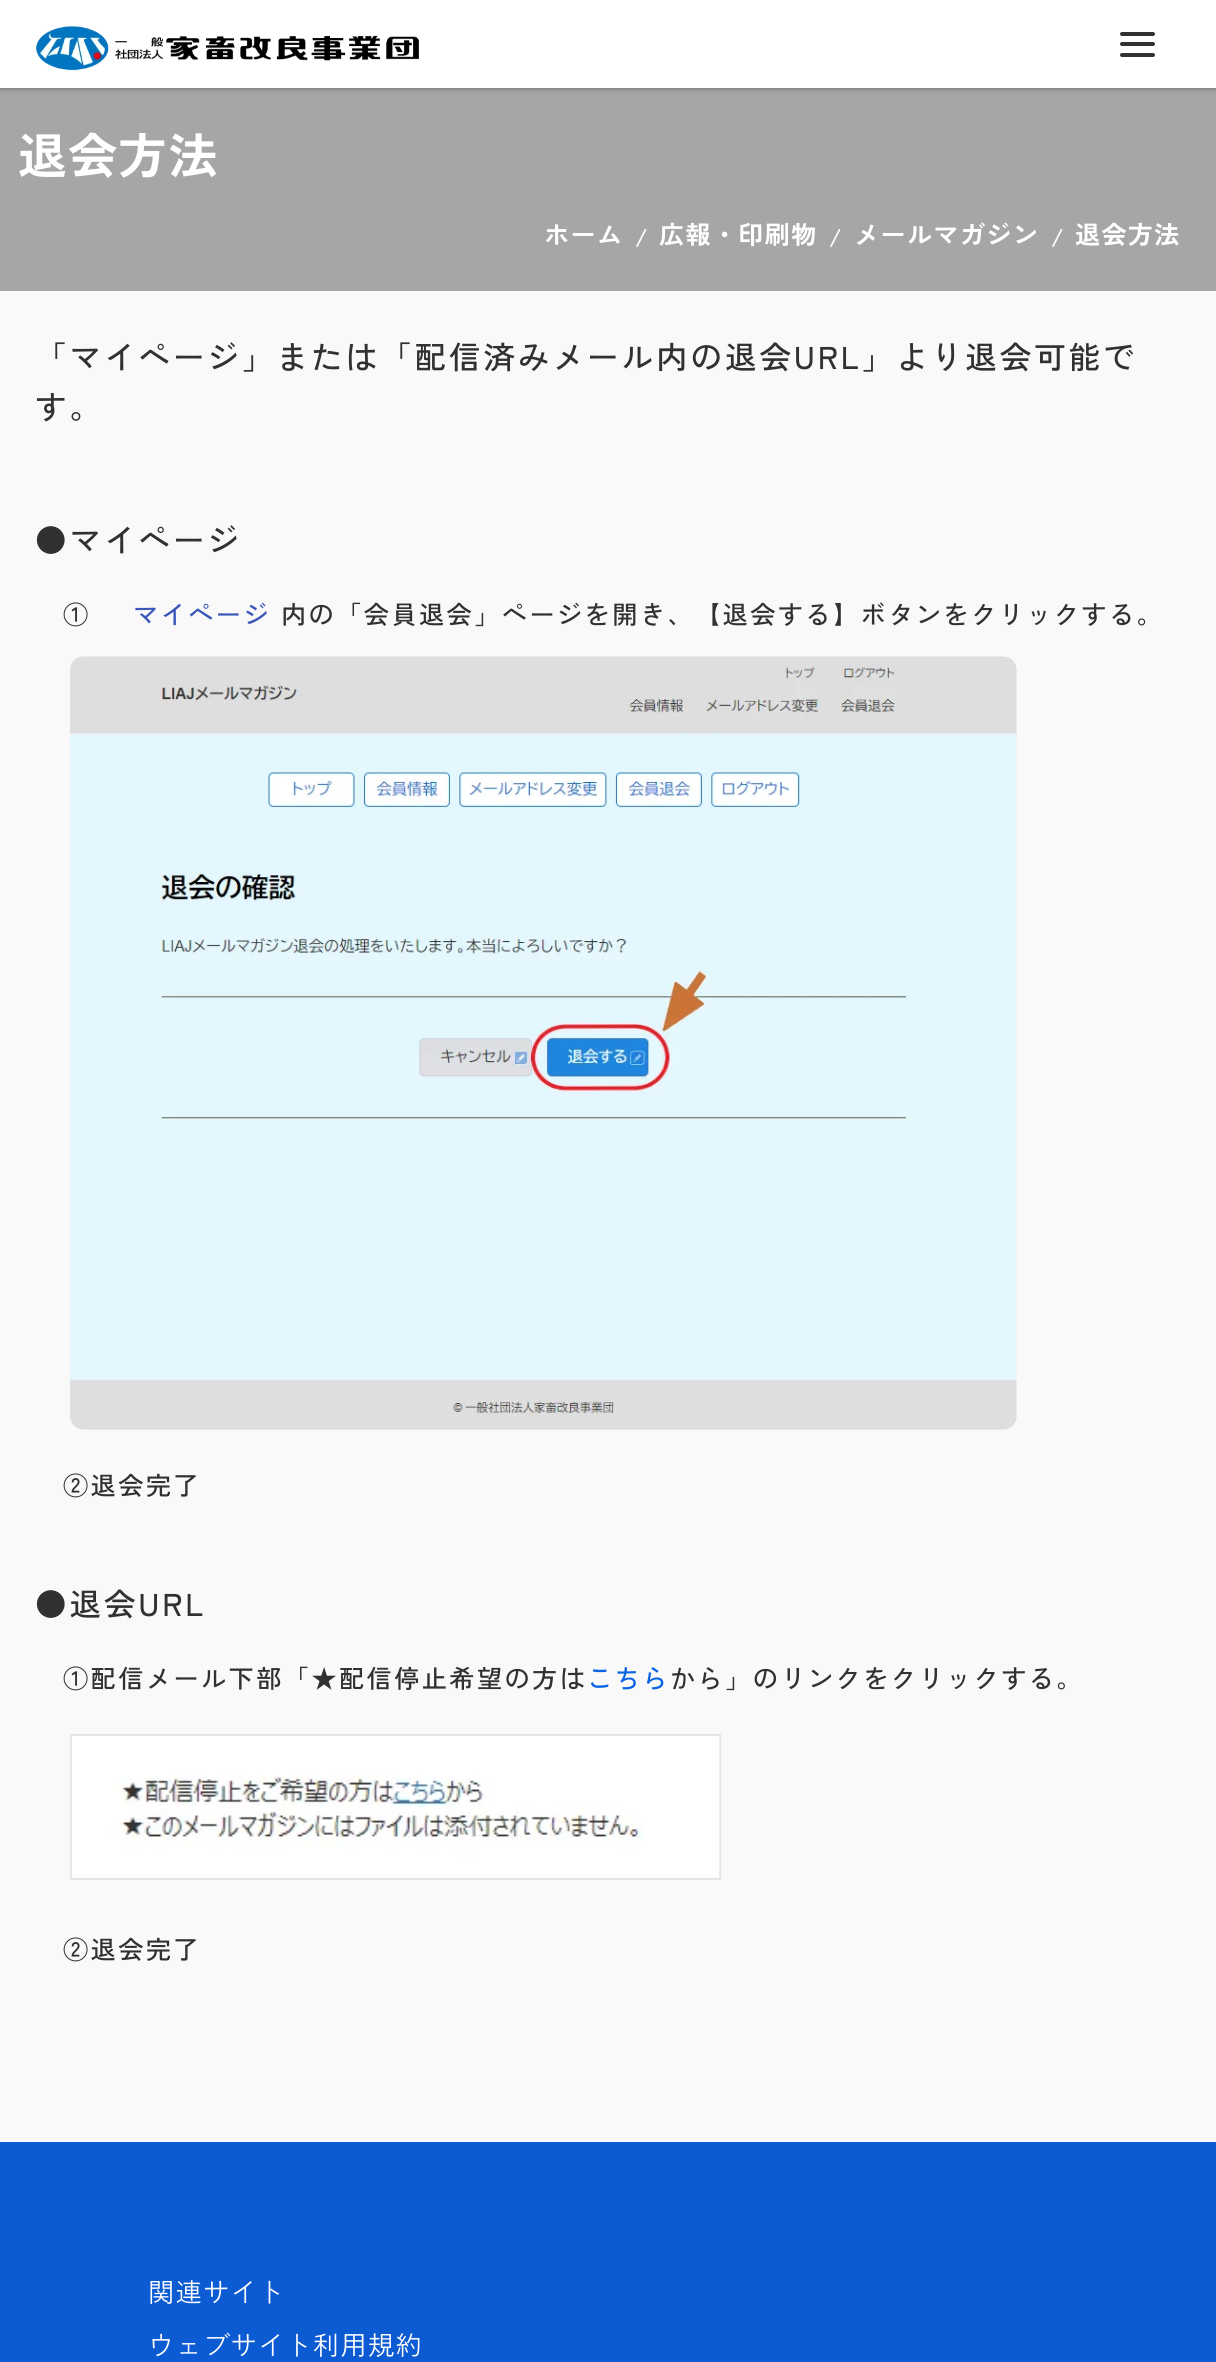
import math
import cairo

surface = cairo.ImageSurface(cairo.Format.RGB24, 1216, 2362)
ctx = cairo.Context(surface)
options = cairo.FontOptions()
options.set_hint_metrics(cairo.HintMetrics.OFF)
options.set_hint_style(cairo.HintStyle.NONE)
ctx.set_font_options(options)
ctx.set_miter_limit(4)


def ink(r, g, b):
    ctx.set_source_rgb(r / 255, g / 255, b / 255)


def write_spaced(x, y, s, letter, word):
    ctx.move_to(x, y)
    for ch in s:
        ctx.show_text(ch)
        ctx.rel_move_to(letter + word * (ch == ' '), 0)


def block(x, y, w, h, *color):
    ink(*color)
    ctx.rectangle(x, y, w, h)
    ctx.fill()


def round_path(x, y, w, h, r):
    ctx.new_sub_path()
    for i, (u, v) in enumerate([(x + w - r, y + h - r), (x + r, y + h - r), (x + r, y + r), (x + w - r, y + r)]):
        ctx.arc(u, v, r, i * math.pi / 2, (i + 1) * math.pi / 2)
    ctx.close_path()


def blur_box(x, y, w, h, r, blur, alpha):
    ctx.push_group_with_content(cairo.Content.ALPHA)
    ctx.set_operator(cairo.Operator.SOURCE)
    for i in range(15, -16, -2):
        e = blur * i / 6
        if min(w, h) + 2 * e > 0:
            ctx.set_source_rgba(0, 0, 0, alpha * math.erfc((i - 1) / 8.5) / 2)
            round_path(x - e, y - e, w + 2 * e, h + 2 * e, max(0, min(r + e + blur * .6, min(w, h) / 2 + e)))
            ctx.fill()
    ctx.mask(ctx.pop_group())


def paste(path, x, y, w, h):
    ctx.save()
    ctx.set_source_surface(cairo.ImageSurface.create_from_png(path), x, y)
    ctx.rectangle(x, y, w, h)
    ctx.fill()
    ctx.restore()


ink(249, 249, 249)
ctx.paint()
block(0, 88, 1216, 203, 166, 166, 166)
ink(0, 0, 0)
blur_box(0, 2, 1216, 87, 0, 2.5, 0.3)
block(0, 0, 1216, 88, 255, 255, 255)
paste("pic1.png", 36, 26, 383, 45)
ink(49, 49, 49)
round_path(1120, 32, 35, 4, 2)
ctx.fill()
round_path(1120, 42, 35, 4, 2)
ctx.fill()
round_path(1120, 53, 35, 4, 2)
ctx.fill()
ctx.select_font_face("Zen Kaku Gothic Antique", cairo.FontSlant.NORMAL, cairo.FontWeight.BOLD)
ctx.set_font_size(49)
ink(255, 255, 255)
write_spaced(18, 174, "退会方法", 1.25, 0)
ctx.set_font_size(25.2)
write_spaced(544, 244, "ホーム", 1.25, 0)
ctx.set_font_size(23)
write_spaced(635, 246, "/", 1.25, 0)
ctx.set_font_size(25.2)
write_spaced(659, 244, "広報・印刷物", 1.25, 0)
ctx.set_font_size(23)
write_spaced(829, 246, "/", 1.25, 0)
ctx.set_font_size(25.2)
write_spaced(854, 244, "メールマガジン", 1.25, 0)
ctx.set_font_size(23)
write_spaced(1051, 246, "/", 1.25, 0)
ctx.set_font_size(25.2)
write_spaced(1075, 244, "退会方法", 1.25, 0)
ctx.select_font_face("Zen Kaku Gothic Antique Medium")
ctx.set_font_size(31.5)
ink(49, 49, 49)
write_spaced(35, 369, "「マイページ」または「配信済みメール内の退会URL」より退会可能で", 3, 0)
write_spaced(35, 419, "す。", 3, 0)
write_spaced(35, 552, "●マイページ", 3, 0)
ctx.set_font_size(25.2)
write_spaced(63, 624, "①", 2.4, 0)
ink(58, 87, 185)
write_spaced(133, 624, "マイページ", 2.4, 0)
ink(49, 49, 49)
write_spaced(281, 624, "内の「会員退会」ページを開き、【退会する】ボタンをクリックする。", 2.4, 0)
paste("pic2.png", 70, 656, 947, 774)
write_spaced(63, 1495, "②退会完了", 2.4, 0)
ctx.set_font_size(31.5)
write_spaced(35, 1616, "●退会URL", 3, 0)
ctx.set_font_size(25.2)
write_spaced(63, 1688, "①配信メール下部「★配信停止希望の方は", 2.4, 0)
ink(7, 99, 227)
write_spaced(587, 1688, "こちら", 2.4, 0)
ink(49, 49, 49)
write_spaced(670, 1688, "から」のリンクをクリックする。", 2.4, 0)
ctx.rectangle(71, 1735, 649, 144)
ink(229, 229, 229)
ctx.stroke()
paste("pic3.png", 71, 1736, 649, 142)
ink(49, 49, 49)
write_spaced(63, 1959, "②退会完了", 2.4, 0)
block(0, 2142, 1216, 220, 12, 91, 210)
ctx.select_font_face("Zen Kaku Gothic Antique")
ctx.set_font_size(26.25)
ink(255, 255, 255)
write_spaced(148, 2302, "関連サイト", 1.25, 0)
write_spaced(148, 2355, "ウェブサイト利用規約", 1.25, 0)
surface.write_to_png("screenshot.png")
